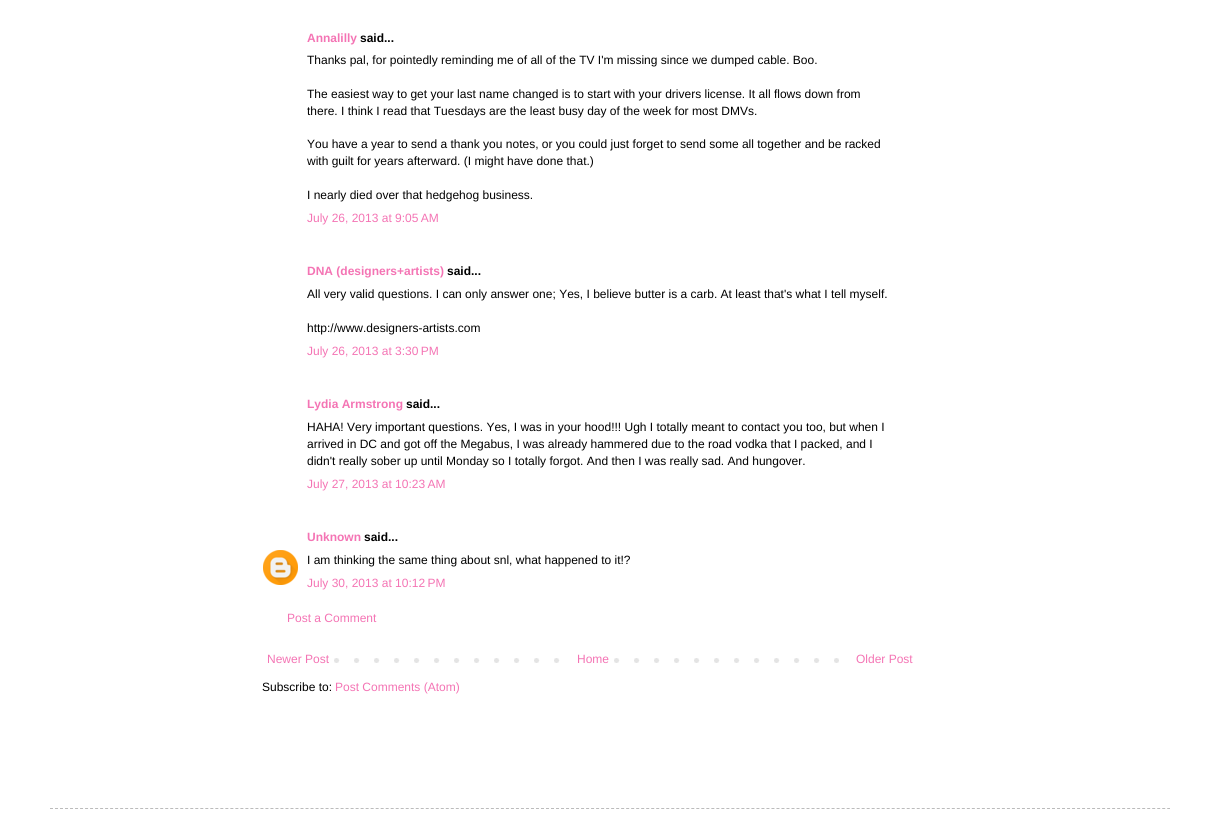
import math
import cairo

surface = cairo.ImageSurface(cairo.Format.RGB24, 1220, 821)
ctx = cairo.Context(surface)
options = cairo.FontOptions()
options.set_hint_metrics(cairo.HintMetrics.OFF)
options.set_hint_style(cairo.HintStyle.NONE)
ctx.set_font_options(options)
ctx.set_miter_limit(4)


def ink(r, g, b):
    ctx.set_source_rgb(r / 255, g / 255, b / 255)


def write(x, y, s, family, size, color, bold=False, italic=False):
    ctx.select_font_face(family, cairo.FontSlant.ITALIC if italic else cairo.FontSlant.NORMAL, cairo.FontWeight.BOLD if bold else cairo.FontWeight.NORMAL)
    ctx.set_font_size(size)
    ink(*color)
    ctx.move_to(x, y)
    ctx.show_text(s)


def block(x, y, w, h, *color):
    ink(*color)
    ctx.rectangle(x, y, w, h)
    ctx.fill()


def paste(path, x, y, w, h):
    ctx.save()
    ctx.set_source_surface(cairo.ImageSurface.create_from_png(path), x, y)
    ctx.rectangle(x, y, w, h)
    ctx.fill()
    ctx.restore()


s1 = dict(family="Liberation Sans", size=12, color=(244, 116, 180), bold=True)
s2 = dict(family="Liberation Sans", size=12, color=(0, 0, 0), bold=True)
s3 = dict(family="Liberation Sans", size=12, color=(0, 0, 0))
s4 = dict(family="Liberation Sans", size=12, color=(244, 116, 180))

ink(255, 255, 255)
ctx.paint()
write(307, 42, "Annalilly", **s1)
write(360, 42, "said...", **s2)
write(307, 64, "Thanks pal, for pointedly reminding me of all of the TV I'm missing since we dumped cable. Boo.", **s3)
write(307, 98, "The easiest way to get your last name changed is to start with your drivers license. It all flows down from", **s3)
write(307, 115, "there. I think I read that Tuesdays are the least busy day of the week for most DMVs.", **s3)
write(307, 148, "You have a year to send a thank you notes, or you could just forget to send some all together and be racked", **s3)
write(307, 165, "with guilt for years afterward. (I might have done that.)", **s3)
write(307, 199, "I nearly died over that hedgehog business.", **s3)
write(307, 222, "July 26, 2013 at 9:05 AM", **s4)
write(307, 275, "DNA (designers+artists)", **s1)
write(447, 275, "said...", **s2)
write(307, 298, "All very valid questions. I can only answer one; Yes, I believe butter is a carb. At least that's what I tell myself.", **s3)
write(307, 332, "http://www.designers-artists.com", **s3)
write(307, 355, "July 26, 2013 at 3:30 PM", **s4)
write(307, 408, "Lydia Armstrong", **s1)
write(406, 408, "said...", **s2)
write(307, 431, "HAHA! Very important questions. Yes, I was in your hood!!! Ugh I totally meant to contact you too, but when I", **s3)
write(307, 448, "arrived in DC and got off the Megabus, I was already hammered due to the road vodka that I packed, and I", **s3)
write(307, 465, "didn't really sober up until Monday so I totally forgot. And then I was really sad. And hungover.", **s3)
write(307, 488, "July 27, 2013 at 10:23 AM", **s4)
write(307, 541, "Unknown", **s1)
write(364, 541, "said...", **s2)
paste("pic1.png", 263, 550, 35, 35)
write(307, 564, "I am thinking the same thing about snl, what happened to it!?", **s3)
write(307, 587, "July 30, 2013 at 10:12 PM", **s4)
write(287, 622, "Post a Comment", **s4)
paste("pic2.png", 334, 658, 505, 5)
write(267, 663, "Newer Post", **s4)
block(574, 658, 26, 5, 255, 255, 255)
write(577, 663, "Home", **s4)
write(856, 663, "Older Post", **s4)
write(262, 691, "Subscribe to:", **s3)
write(335, 691, "Post Comments (Atom)", **s4)
ctx.new_path()
ctx.move_to(50, 808.5)
ctx.line_to(1170, 808.5)
ink(187, 187, 187)
ctx.set_line_width(1)
ctx.set_dash([3, 2.01])
ctx.stroke()
surface.write_to_png("screenshot.png")
